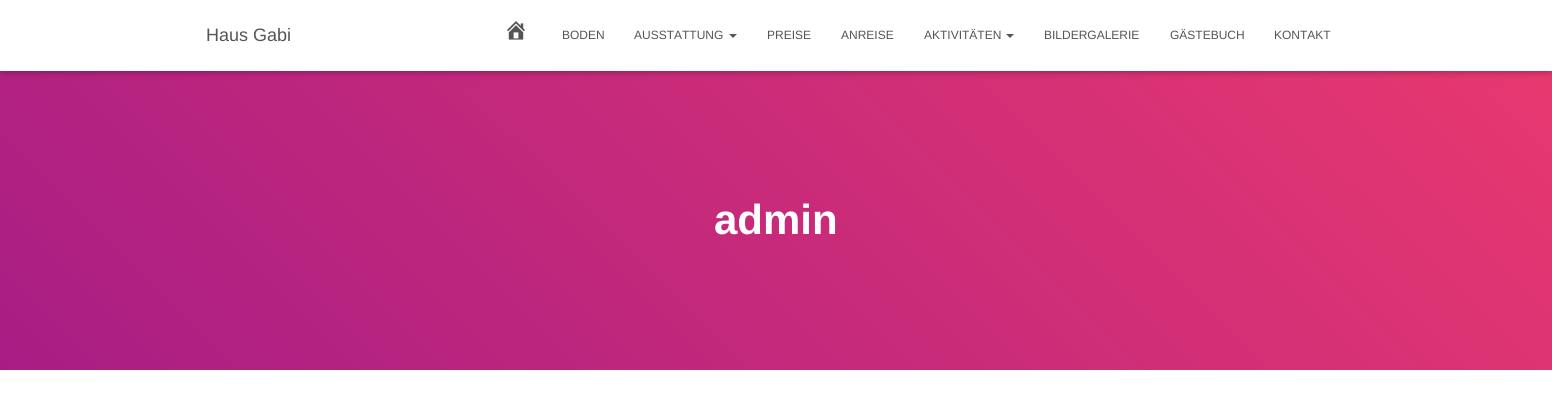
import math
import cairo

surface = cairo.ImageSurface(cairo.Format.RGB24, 1552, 406)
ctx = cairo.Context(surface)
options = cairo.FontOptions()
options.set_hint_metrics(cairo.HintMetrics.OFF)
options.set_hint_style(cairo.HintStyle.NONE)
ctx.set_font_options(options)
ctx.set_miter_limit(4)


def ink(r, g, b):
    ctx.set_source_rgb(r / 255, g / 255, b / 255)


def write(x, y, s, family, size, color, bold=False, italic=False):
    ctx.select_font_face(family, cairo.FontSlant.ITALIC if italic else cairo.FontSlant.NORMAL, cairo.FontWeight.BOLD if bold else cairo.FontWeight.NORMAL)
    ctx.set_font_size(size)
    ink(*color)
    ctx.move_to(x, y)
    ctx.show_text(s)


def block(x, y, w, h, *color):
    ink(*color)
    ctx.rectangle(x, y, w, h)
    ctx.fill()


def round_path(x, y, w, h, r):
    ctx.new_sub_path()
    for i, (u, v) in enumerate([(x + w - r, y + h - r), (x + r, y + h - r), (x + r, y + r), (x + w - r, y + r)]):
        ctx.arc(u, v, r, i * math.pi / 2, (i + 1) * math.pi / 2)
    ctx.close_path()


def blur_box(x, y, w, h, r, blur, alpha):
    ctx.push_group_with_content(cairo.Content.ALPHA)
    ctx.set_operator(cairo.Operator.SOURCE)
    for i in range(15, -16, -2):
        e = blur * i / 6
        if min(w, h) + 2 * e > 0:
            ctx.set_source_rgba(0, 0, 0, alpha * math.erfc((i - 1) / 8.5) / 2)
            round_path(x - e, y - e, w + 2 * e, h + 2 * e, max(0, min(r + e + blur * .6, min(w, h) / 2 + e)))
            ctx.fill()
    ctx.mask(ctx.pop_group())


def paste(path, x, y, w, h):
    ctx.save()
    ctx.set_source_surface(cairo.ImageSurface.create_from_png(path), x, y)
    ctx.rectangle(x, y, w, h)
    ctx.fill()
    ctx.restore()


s1 = dict(family="Liberation Sans", size=18, color=(85, 85, 85))
s2 = dict(family="Liberation Sans", size=12, color=(85, 85, 85))
s3 = dict(family="Liberation Sans", size=42, color=(255, 255, 255), bold=True)

ink(255, 255, 255)
ctx.paint()
gradient = cairo.LinearGradient(296, 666, 1257, -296)
gradient.add_color_stop_rgba(0, 0.659, 0.114, 0.518, 1)
gradient.add_color_stop_rgba(1, 0.918, 0.224, 0.435, 1)
ctx.set_source(gradient)
ctx.rectangle(0, 71, 1552, 299)
ctx.fill()
ink(0, 0, 0)
blur_box(2, 6, 1548, 67, 0, 2.5, 0.1)
blur_box(0, 1, 1552, 71, 0, 5, 0.12)
blur_box(6, 7, 1540, 59, 0, 5, 0.42)
block(0, 0, 1552, 71, 255, 255, 255)
write(206, 41, "Haus Gabi", **s1)
paste("pic1.png", 507, 21, 18, 19)
write(562, 39, "BODEN", **s2)
write(634, 39, "AUSSTATTUNG", **s2)
ctx.new_path()
ctx.move_to(729, 34)
ctx.line_to(737, 34)
ctx.line_to(733, 38)
ctx.close_path()
ctx.fill()
write(767, 39, "PREISE", **s2)
write(841, 39, "ANREISE", **s2)
write(924, 39, "AKTIVITÄTEN", **s2)
ctx.new_path()
ctx.move_to(1006, 34)
ctx.line_to(1014, 34)
ctx.line_to(1010, 38)
ctx.close_path()
ctx.fill()
write(1044, 39, "BILDERGALERIE", **s2)
write(1170, 39, "GÄSTEBUCH", **s2)
write(1274, 39, "KONTAKT", **s2)
write(714, 234, "admin", **s3)
surface.write_to_png("screenshot.png")
